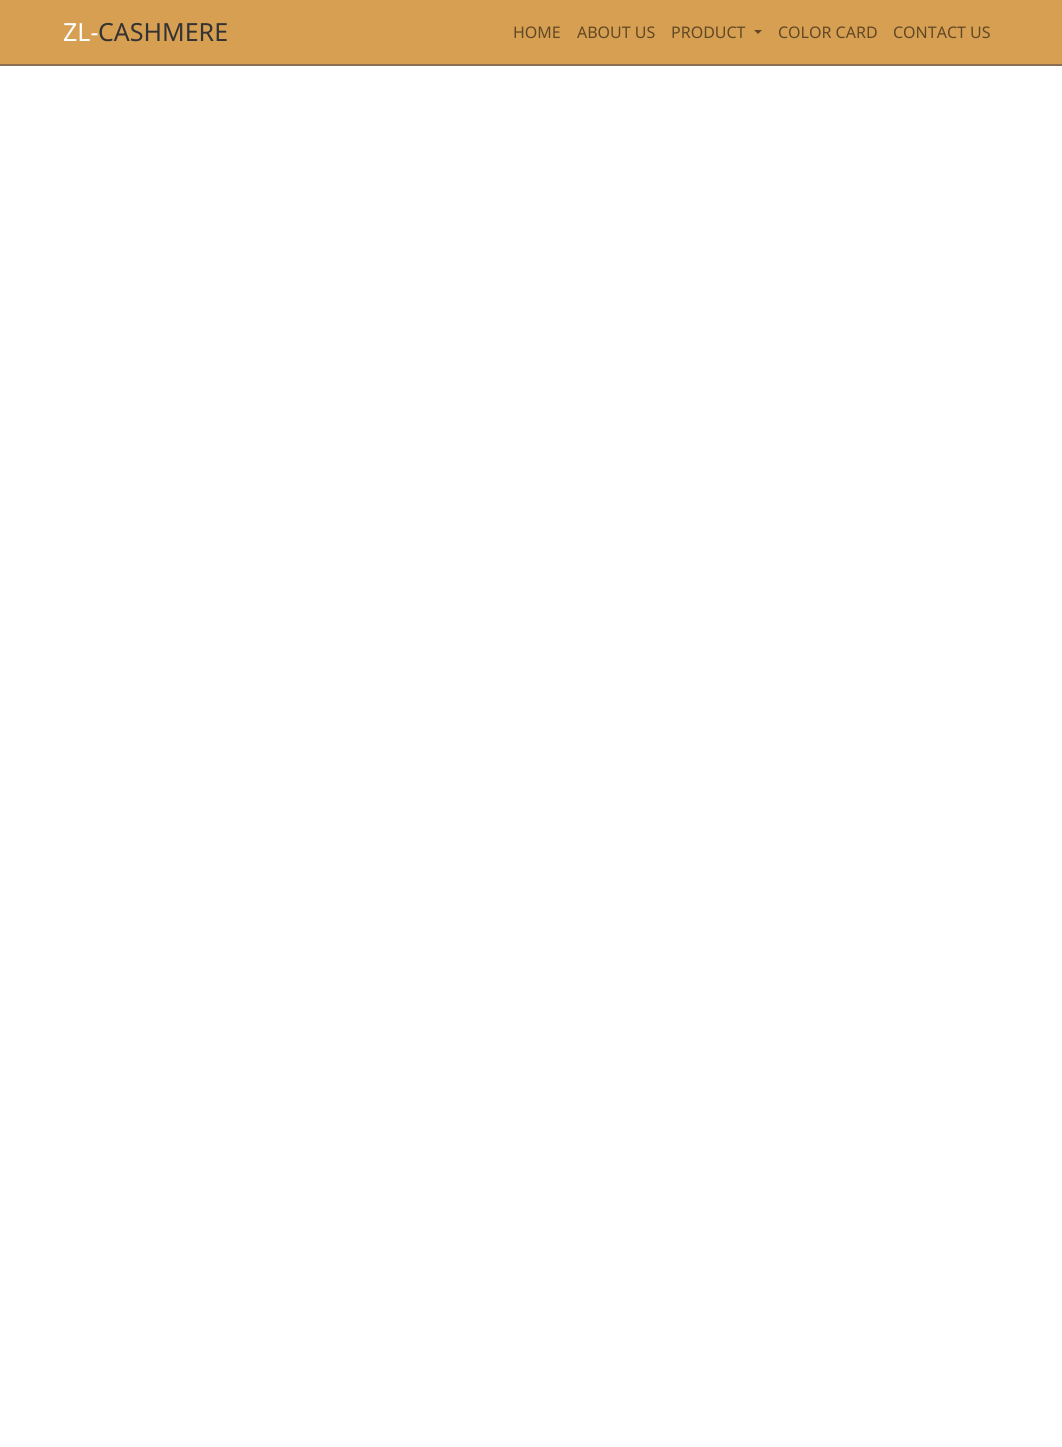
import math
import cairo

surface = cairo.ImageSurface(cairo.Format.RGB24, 1062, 1447)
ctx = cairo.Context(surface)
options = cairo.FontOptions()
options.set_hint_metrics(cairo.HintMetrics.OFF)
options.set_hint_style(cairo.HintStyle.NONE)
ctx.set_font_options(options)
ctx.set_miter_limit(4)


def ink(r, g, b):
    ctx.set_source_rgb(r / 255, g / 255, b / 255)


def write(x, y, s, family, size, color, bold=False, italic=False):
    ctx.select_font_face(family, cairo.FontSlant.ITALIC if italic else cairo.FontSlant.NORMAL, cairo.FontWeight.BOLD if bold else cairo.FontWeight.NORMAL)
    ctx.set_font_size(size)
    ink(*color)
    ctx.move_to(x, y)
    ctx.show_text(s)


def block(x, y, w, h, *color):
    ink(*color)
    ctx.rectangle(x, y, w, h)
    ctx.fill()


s1 = dict(family="Noto Sans", size=25, color=(255, 255, 255))
s2 = dict(family="Noto Sans", size=25, color=(51, 51, 51))
s3 = dict(family="Noto Sans", size=16, color=(97, 72, 37))

ink(255, 255, 255)
ctx.paint()
block(0, 0, 1062, 64, 215, 159, 82)
block(0, 64, 1062, 2, 140, 112, 84)
write(63, 41, "ZL-", **s1)
write(98, 41, "CASHMERE", **s2)
write(513, 38, "HOME", **s3)
write(577, 38, "ABOUT US", **s3)
write(671, 38, "PRODUCT", **s3)
ctx.new_path()
ctx.move_to(754, 30)
ctx.line_to(762, 30)
ctx.line_to(758, 34)
ctx.close_path()
ctx.fill()
write(778, 38, "COLOR CARD", **s3)
write(893, 38, "CONTACT US", **s3)
surface.write_to_png("screenshot.png")
